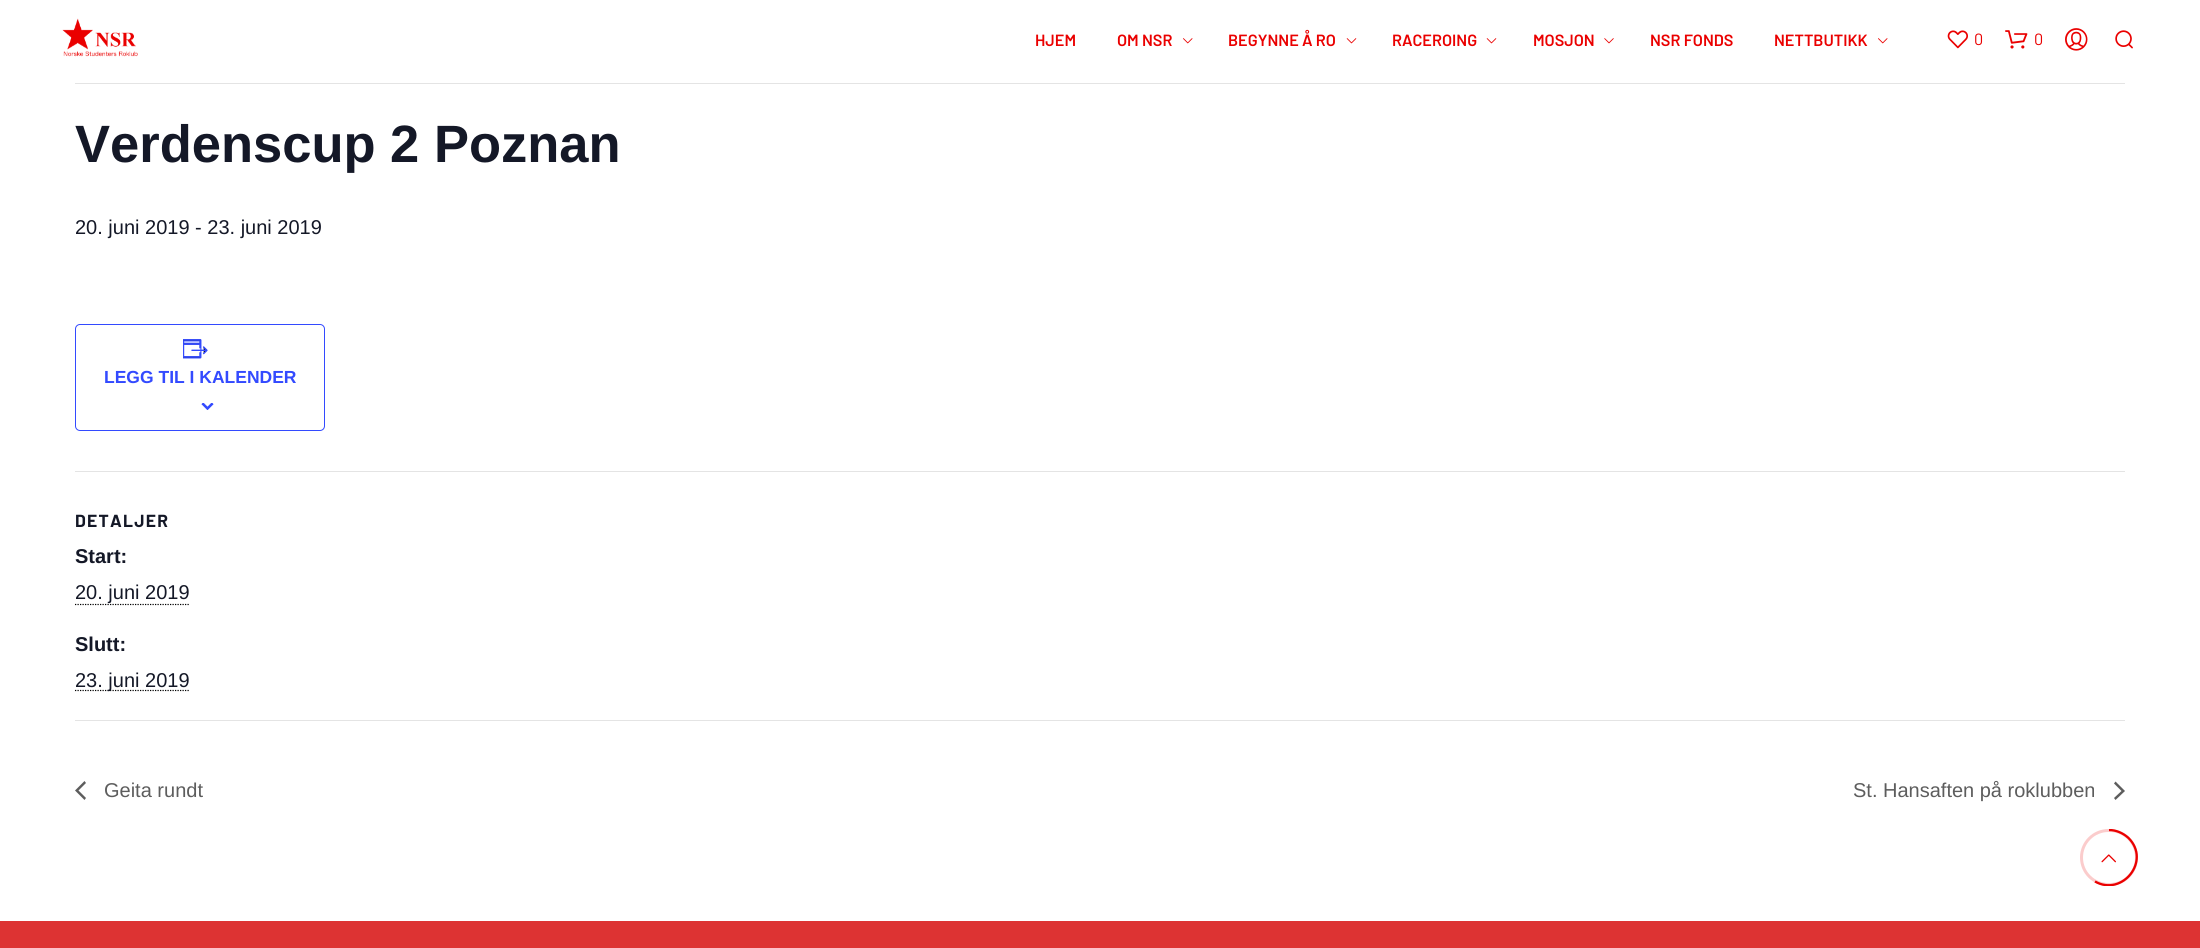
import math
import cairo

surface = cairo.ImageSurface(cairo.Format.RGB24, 2200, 948)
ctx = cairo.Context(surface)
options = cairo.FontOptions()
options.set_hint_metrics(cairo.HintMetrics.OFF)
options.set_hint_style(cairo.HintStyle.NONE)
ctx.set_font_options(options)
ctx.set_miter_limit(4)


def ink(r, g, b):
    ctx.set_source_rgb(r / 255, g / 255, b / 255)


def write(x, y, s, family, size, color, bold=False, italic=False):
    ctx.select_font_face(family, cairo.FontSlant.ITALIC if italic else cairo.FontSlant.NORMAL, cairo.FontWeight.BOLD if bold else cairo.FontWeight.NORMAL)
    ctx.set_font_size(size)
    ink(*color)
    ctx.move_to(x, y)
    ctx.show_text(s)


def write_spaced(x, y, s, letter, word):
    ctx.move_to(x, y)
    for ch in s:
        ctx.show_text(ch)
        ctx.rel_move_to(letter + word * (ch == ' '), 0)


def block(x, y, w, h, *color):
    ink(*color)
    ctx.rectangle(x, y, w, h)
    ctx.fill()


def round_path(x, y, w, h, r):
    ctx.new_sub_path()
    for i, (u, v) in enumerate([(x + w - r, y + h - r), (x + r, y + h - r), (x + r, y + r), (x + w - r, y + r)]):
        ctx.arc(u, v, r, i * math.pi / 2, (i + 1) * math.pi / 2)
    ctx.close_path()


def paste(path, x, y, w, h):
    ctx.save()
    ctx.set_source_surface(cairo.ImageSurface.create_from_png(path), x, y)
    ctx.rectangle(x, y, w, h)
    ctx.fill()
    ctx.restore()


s1 = dict(family="Barlow SemiBold", size=16.25, color=(234, 0, 0))
s2 = dict(family="Barlow", size=16.25, color=(234, 0, 0))
s3 = dict(family="Liberation Sans", size=52.5, color=(20, 24, 39), bold=True)
s4 = dict(family="Liberation Sans", size=20, color=(20, 24, 39))
s5 = dict(family="Liberation Sans", size=17.5, color=(51, 74, 255), bold=True)
s6 = dict(family="Liberation Sans", size=20, color=(20, 24, 39), bold=True)
s7 = dict(family="Liberation Sans", size=20, color=(93, 93, 93))

ink(255, 255, 255)
ctx.paint()
paste("pic1.png", 62, 18, 76, 39)
write(1035, 46, "HJEM", **s1)
write(1117, 46, "OM NSR", **s1)
paste("pic2.png", 1183, 38, 10, 6)
write(1228, 46, "BEGYNNE Å RO", **s1)
paste("pic3.png", 1346, 38, 11, 6)
write(1392, 46, "RACEROING", **s1)
paste("pic3.png", 1486, 38, 11, 6)
write(1533, 46, "MOSJON", **s1)
paste("pic4.png", 1604, 38, 10, 6)
write(1650, 46, "NSR FONDS", **s1)
write(1774, 46, "NETTBUTIKK", **s1)
paste("pic2.png", 1878, 38, 10, 6)
paste("pic5.png", 1947, 30, 21, 19)
write(1974, 45, "0", **s2)
paste("pic6.png", 2005, 30, 23, 19)
write(2034, 45, "0", **s2)
paste("pic7.png", 2065, 28, 23, 23)
paste("pic8.png", 2115, 30, 18, 19)
block(75, 83, 2050, 1, 228, 228, 228)
write(75, 162, "Verdenscup 2 Poznan", **s3)
write(75, 234, "20. juni 2019 - 23. juni 2019", **s4)
round_path(75.5, 324.5, 249, 106, 4.5)
ink(51, 74, 255)
ctx.set_line_width(1)
ctx.stroke()
paste("pic9.png", 183, 339, 25, 20)
write(104, 383, "LEGG TIL I KALENDER", **s5)
paste("pic10.png", 201, 403, 13, 7)
block(75, 471, 2050, 1, 228, 228, 228)
ctx.select_font_face("Barlow", cairo.FontSlant.NORMAL, cairo.FontWeight.BOLD)
ink(20, 24, 39)
write_spaced(75, 527, "DETALJER", 1.25, 0)
write(75, 563, "Start:", **s6)
ctx.new_path()
ctx.move_to(75, 604.5)
ctx.line_to(190, 604.5)
ink(0, 0, 0)
ctx.set_line_width(1.2)
ctx.set_dash([1.25, 1.25])
ctx.stroke()
write(75, 599, "20. juni 2019", **s4)
write(75, 651, "Slutt:", **s6)
ctx.new_path()
ctx.move_to(75, 690.5)
ctx.line_to(190, 690.5)
ink(0, 0, 0)
ctx.stroke()
write(75, 687, "23. juni 2019", **s4)
block(75, 720, 2050, 1, 228, 228, 228)
ink(93, 93, 93)
ctx.new_path()
ctx.move_to(86, 798)
ctx.line_to(84.5, 800)
ctx.line_to(75, 790.5)
ctx.line_to(84.5, 781)
ctx.line_to(86, 783)
ctx.line_to(78.5, 790.5)
ctx.close_path()
ctx.fill()
write(104, 797, "Geita rundt", **s7)
write(1853, 797, "St. Hansaften på roklubben", **s7)
ctx.new_path()
ctx.move_to(2114, 783.5)
ctx.line_to(2115.5, 781.5)
ctx.line_to(2125, 791)
ctx.line_to(2115.5, 800)
ctx.line_to(2114, 798)
ctx.line_to(2121.5, 791)
ctx.close_path()
ctx.fill()
block(0, 921, 2200, 27, 221, 51, 51)
round_path(2081.5, 830.5, 55, 54, 27)
ink(251, 204, 204)
ctx.set_line_width(3)
ctx.set_dash([])
ctx.stroke()
ctx.save()
ctx.rectangle(2080, 829, 58, 57)
ctx.clip()
ctx.new_path()
ctx.move_to(2109, 830)
ctx.curve_to(2116, 830, 2123, 833, 2128.5, 838)
ctx.curve_to(2151.5, 861, 2122, 897, 2095, 881.5)
ink(234, 0, 0)
ctx.set_line_width(2.3)
ctx.stroke()
ctx.restore()
paste("pic11.png", 2101, 854, 15, 9)
surface.write_to_png("screenshot.png")
